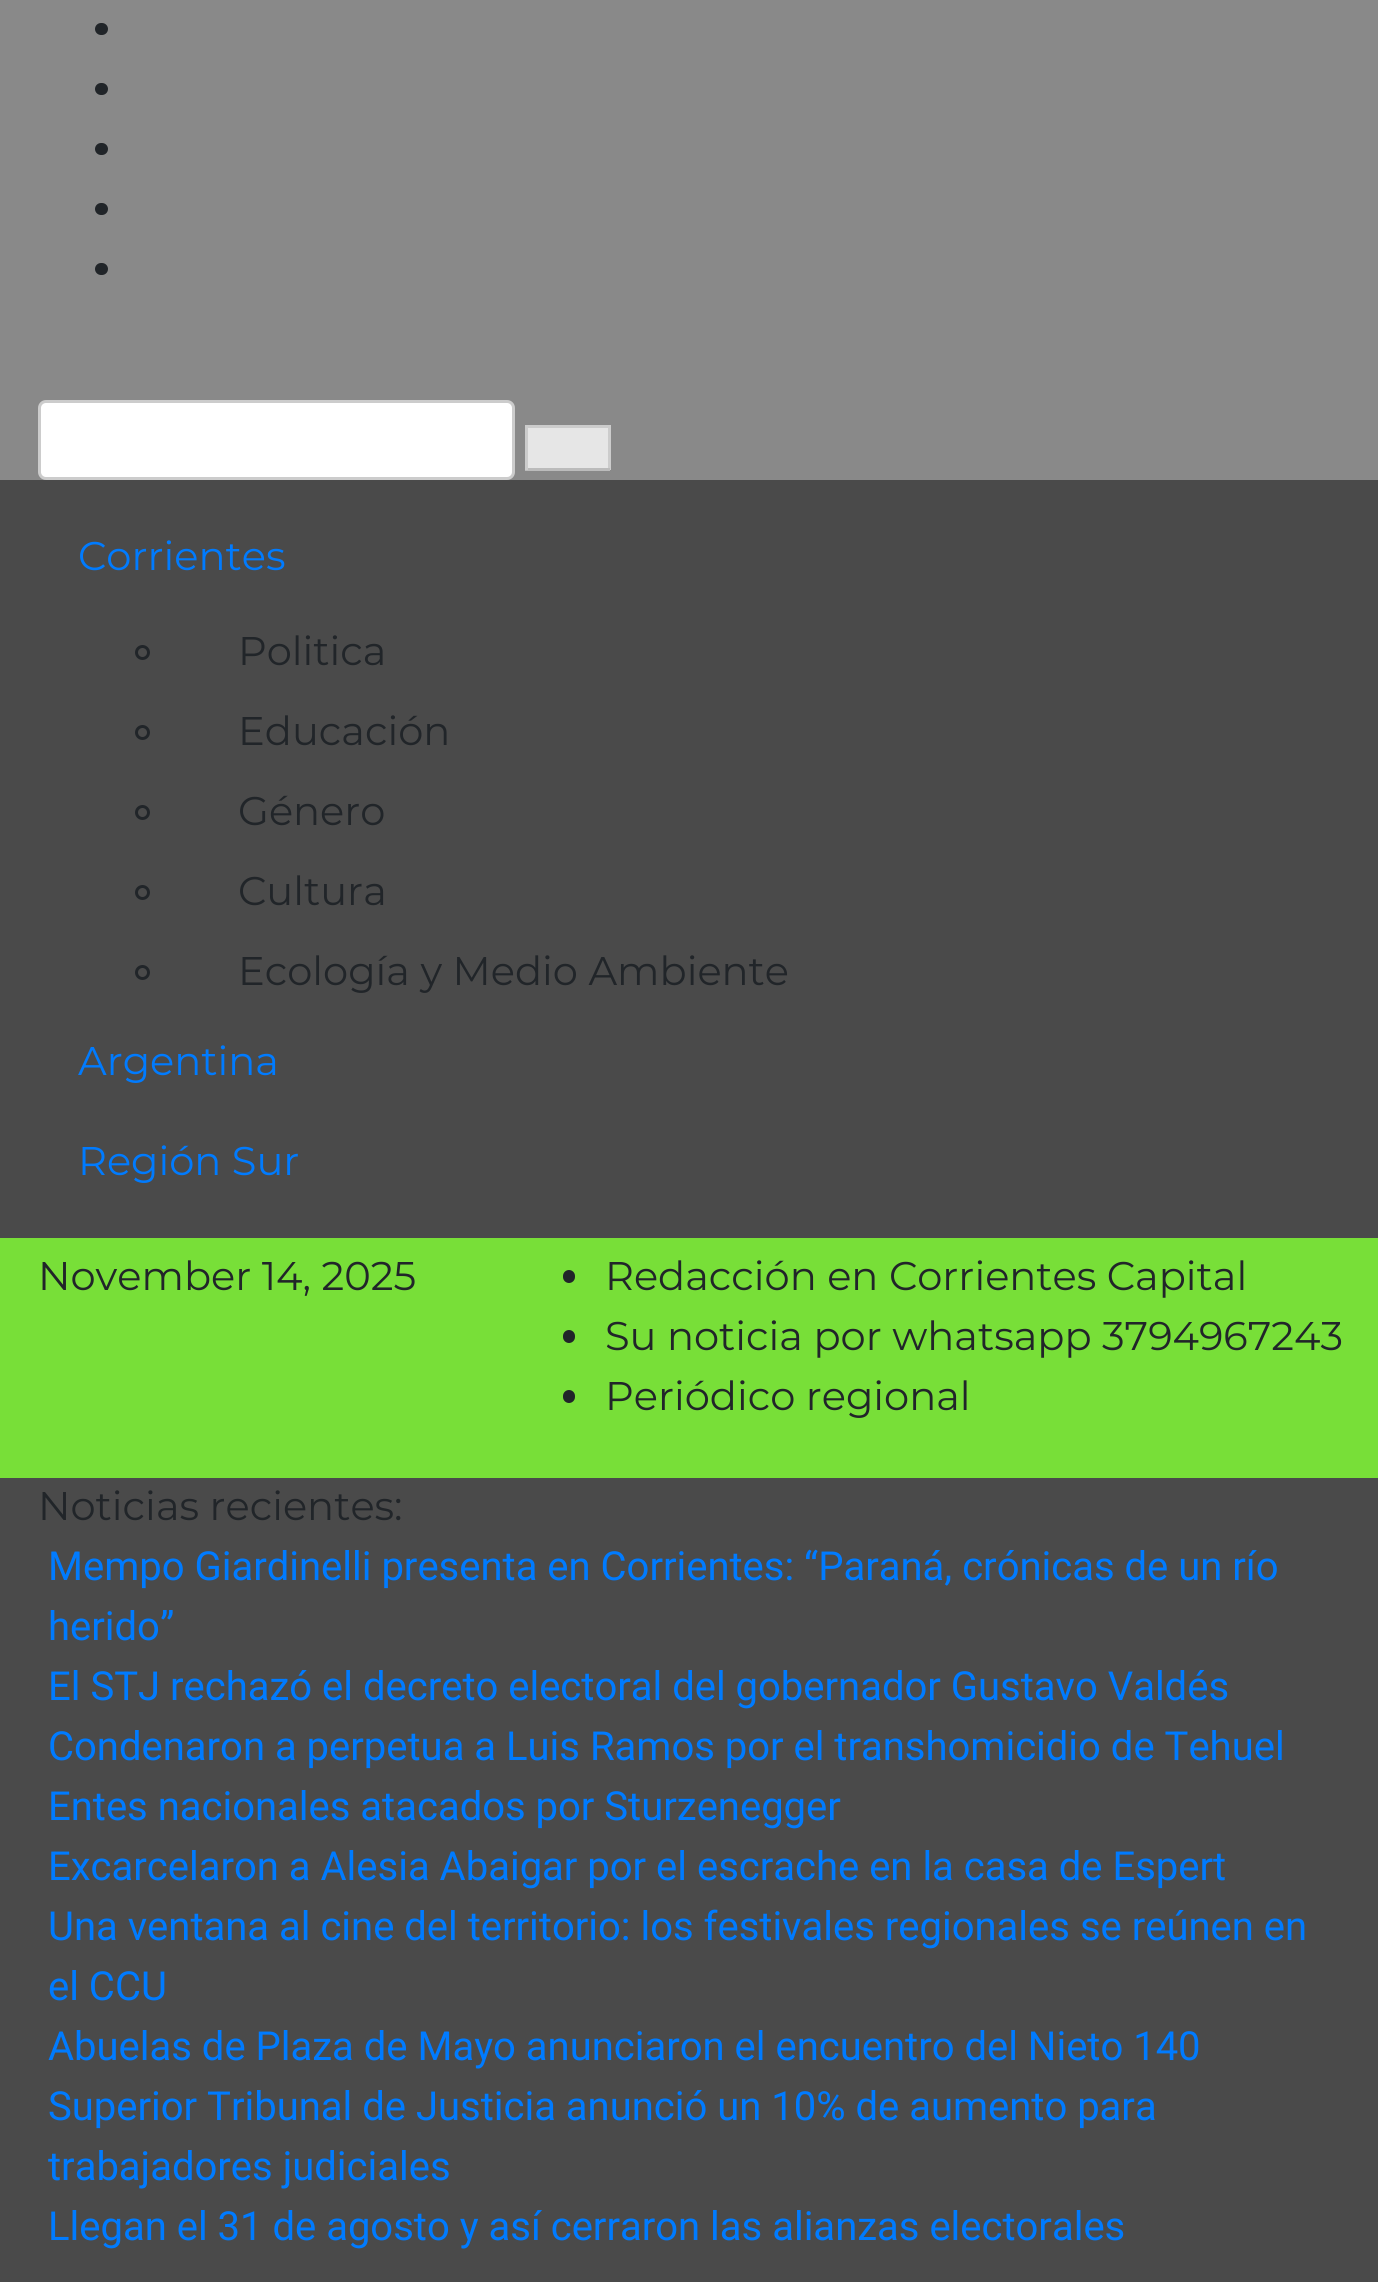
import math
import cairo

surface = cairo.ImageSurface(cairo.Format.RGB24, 1378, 2282)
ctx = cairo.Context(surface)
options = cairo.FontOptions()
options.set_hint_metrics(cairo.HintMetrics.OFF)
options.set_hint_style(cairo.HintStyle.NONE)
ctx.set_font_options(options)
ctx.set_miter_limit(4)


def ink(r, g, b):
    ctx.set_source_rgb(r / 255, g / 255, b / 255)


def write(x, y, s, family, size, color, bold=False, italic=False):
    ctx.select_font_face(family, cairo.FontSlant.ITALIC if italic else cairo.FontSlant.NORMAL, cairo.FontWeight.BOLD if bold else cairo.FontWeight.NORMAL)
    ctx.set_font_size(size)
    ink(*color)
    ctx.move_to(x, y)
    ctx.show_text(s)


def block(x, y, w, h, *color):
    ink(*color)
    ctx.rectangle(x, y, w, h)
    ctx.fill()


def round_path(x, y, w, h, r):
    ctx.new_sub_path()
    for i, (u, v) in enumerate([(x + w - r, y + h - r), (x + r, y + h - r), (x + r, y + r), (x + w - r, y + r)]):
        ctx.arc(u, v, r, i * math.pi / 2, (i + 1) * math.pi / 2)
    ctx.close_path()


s1 = dict(family="Montserrat", size=40, color=(0, 123, 255))
s2 = dict(family="Montserrat", size=40, color=(33, 37, 41))
s3 = dict(family="Roboto", size=40, color=(0, 123, 255))

ink(137, 137, 137)
ctx.paint()
ink(33, 37, 41)
round_path(95, 23, 13, 12, 6)
ctx.fill()
round_path(95, 83, 13, 12, 6)
ctx.fill()
round_path(95, 143, 13, 12, 6)
ctx.fill()
round_path(95, 203, 13, 12, 6)
ctx.fill()
round_path(95, 263, 13, 12, 6)
ctx.fill()
ink(255, 255, 255)
round_path(39.5, 401.5, 474, 77, 6.5)
ctx.fill_preserve()
ink(204, 204, 204)
ctx.set_line_width(3)
ctx.stroke()
block(528, 428, 80, 40, 230, 230, 230)
block(525, 425, 85, 3, 204, 204, 204)
block(608, 425, 3, 45, 204, 204, 204)
block(525, 468, 85, 3, 187, 187, 187)
block(525, 425, 3, 45, 204, 204, 204)
block(0, 480, 1378, 758, 74, 74, 74)
write(78, 570, "Corrientes", **s1)
ctx.new_path()
ctx.arc(142.5, 652.5, 6, 0, 2 * math.pi)
ink(33, 37, 41)
ctx.stroke()
write(238, 665, "Politica", **s2)
ctx.new_path()
ctx.arc(142.5, 732.5, 6, 0, 2 * math.pi)
ctx.stroke()
write(238, 745, "Educación", **s2)
ctx.new_path()
ctx.arc(142.5, 812.5, 6, 0, 2 * math.pi)
ctx.stroke()
write(238, 825, "Género", **s2)
ctx.new_path()
ctx.arc(142.5, 892.5, 6, 0, 2 * math.pi)
ctx.stroke()
write(238, 905, "Cultura", **s2)
ctx.new_path()
ctx.arc(142.5, 972.5, 6, 0, 2 * math.pi)
ctx.stroke()
write(238, 985, "Ecología y Medio Ambiente", **s2)
write(78, 1075, "Argentina", **s1)
write(78, 1175, "Región Sur", **s1)
block(0, 1238, 1378, 240, 120, 223, 56)
write(38, 1290, "November 14, 2025", **s2)
round_path(563, 1270, 12, 13, 6)
ctx.fill()
write(605, 1290, "Redacción en Corrientes Capital", **s2)
round_path(563, 1330, 12, 13, 6)
ctx.fill()
write(605, 1350, "Su noticia por whatsapp 3794967243", **s2)
round_path(563, 1390, 12, 13, 6)
ctx.fill()
write(605, 1410, "Periódico regional", **s2)
block(0, 1478, 1378, 804, 74, 74, 74)
write(38, 1520, "Noticias recientes:", **s2)
write(48, 1580, "Mempo Giardinelli presenta en Corrientes: “Paraná, crónicas de un río", **s3)
write(48, 1640, "herido”", **s3)
write(48, 1700, "El STJ rechazó el decreto electoral del gobernador Gustavo Valdés", **s3)
write(48, 1760, "Condenaron a perpetua a Luis Ramos por el transhomicidio de Tehuel", **s3)
write(48, 1820, "Entes nacionales atacados por Sturzenegger", **s3)
write(48, 1880, "Excarcelaron a Alesia Abaigar por el escrache en la casa de Espert", **s3)
write(48, 1940, "Una ventana al cine del territorio: los festivales regionales se reúnen en", **s3)
write(48, 2000, "el CCU", **s3)
write(48, 2060, "Abuelas de Plaza de Mayo anunciaron el encuentro del Nieto 140", **s3)
write(48, 2120, "Superior Tribunal de Justicia anunció un 10% de aumento para", **s3)
write(48, 2180, "trabajadores judiciales", **s3)
write(48, 2240, "Llegan el 31 de agosto y así cerraron las alianzas electorales", **s3)
surface.write_to_png("screenshot.png")
